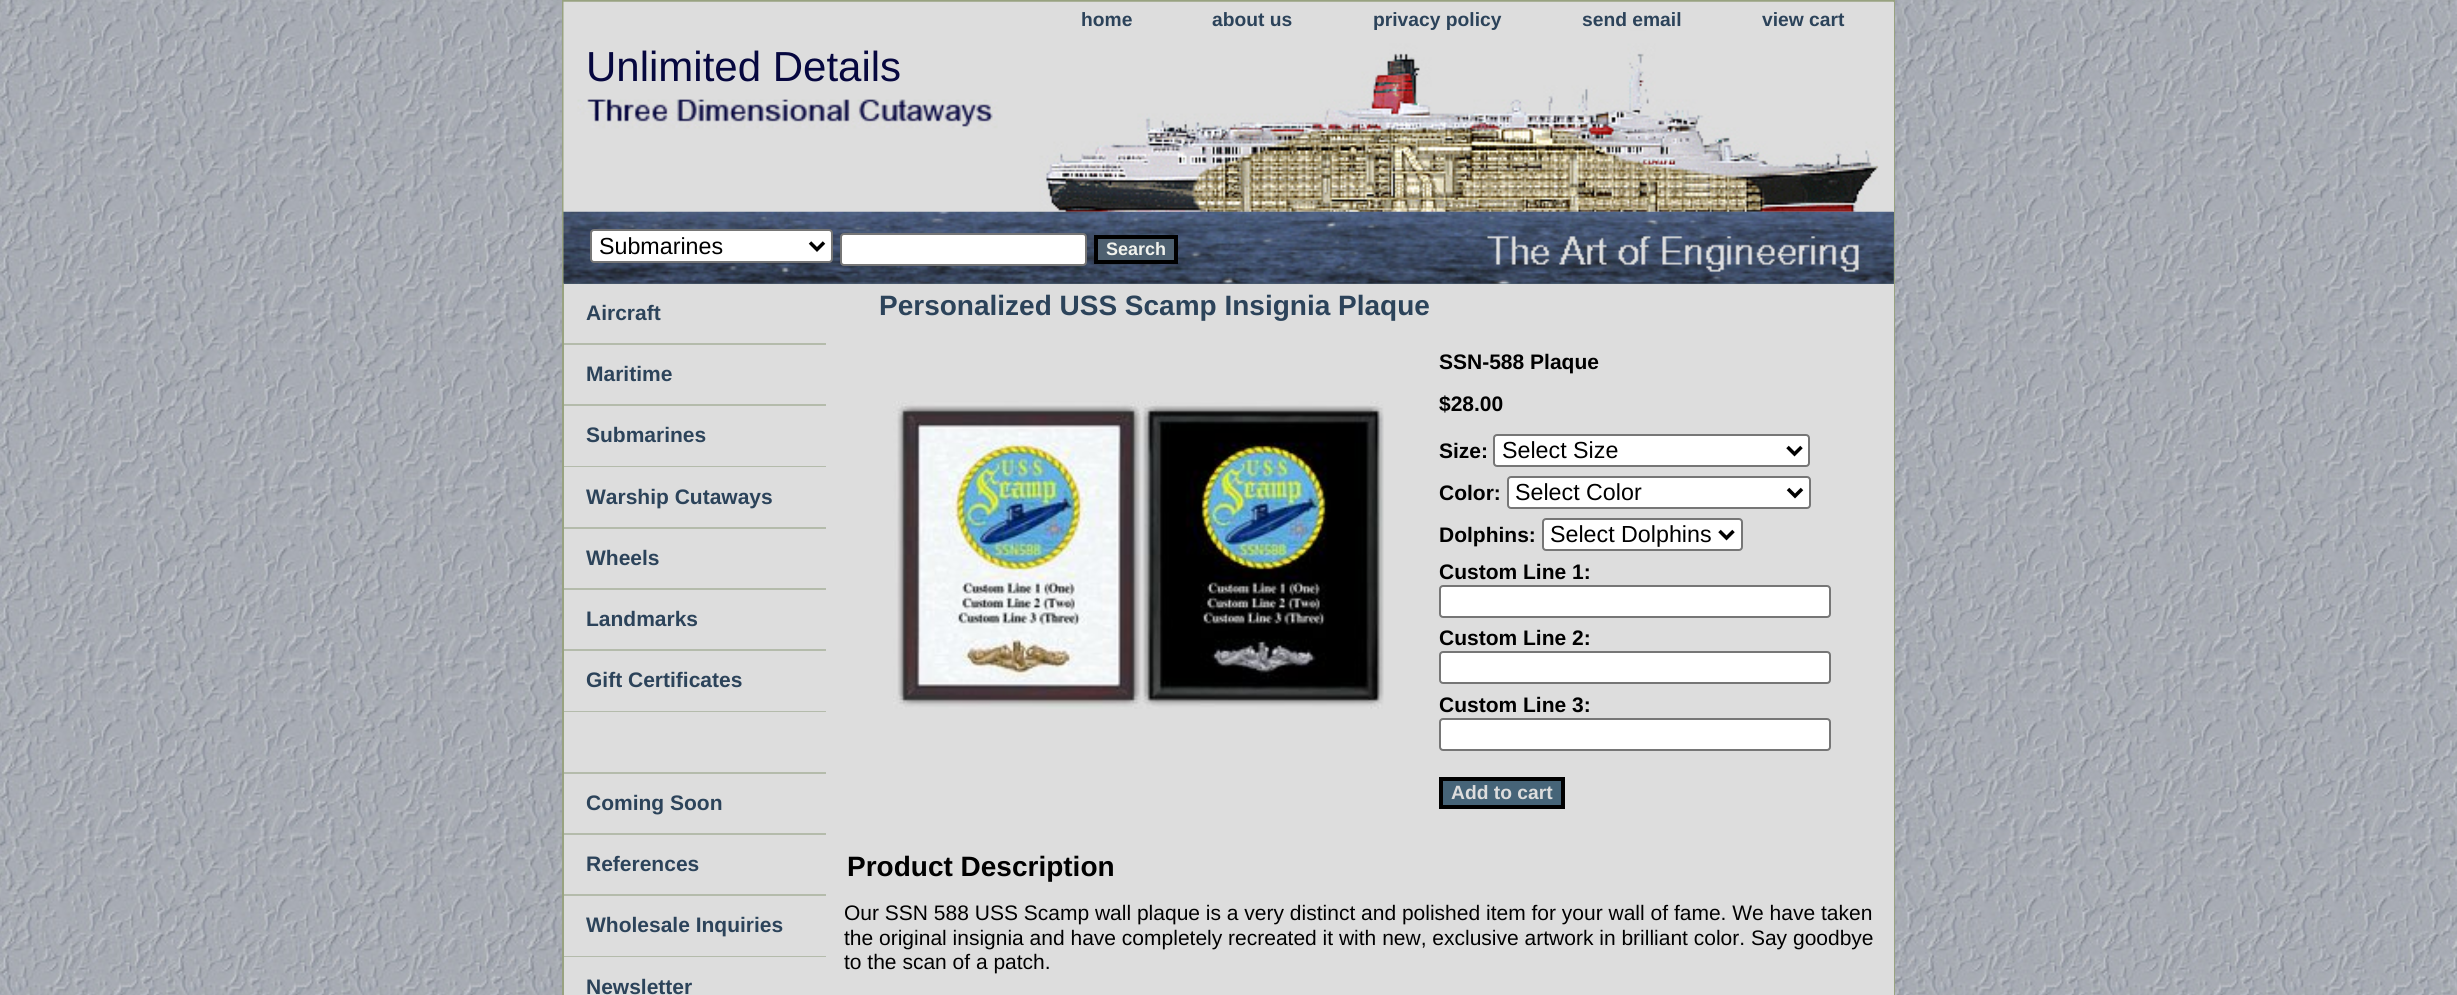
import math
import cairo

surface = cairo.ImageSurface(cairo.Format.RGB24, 2457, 995)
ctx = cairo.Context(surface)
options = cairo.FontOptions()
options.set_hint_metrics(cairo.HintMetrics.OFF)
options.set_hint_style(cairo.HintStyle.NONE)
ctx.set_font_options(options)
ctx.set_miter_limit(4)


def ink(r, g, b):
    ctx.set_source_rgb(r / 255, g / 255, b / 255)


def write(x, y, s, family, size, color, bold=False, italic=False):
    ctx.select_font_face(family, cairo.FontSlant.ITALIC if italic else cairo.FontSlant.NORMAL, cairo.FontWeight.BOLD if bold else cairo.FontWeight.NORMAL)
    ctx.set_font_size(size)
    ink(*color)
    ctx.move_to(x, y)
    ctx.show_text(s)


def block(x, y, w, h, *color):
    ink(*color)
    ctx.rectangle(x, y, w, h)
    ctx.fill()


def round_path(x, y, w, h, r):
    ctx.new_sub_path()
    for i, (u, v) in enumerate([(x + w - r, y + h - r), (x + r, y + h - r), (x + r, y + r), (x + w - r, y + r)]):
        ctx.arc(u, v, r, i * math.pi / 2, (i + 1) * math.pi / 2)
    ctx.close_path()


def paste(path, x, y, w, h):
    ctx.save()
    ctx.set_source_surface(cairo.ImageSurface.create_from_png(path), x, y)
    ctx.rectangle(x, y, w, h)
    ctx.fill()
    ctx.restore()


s1 = dict(family="Liberation Sans", size=19.25, color=(44, 67, 90), bold=True)
s2 = dict(family="Liberation Sans", size=42, color=(6, 7, 63))
s3 = dict(family="Liberation Sans", size=23.25, color=(0, 0, 0))
s4 = dict(family="Liberation Sans", size=18, color=(241, 242, 237), bold=True)
s5 = dict(family="Liberation Sans", size=21, color=(44, 67, 90), bold=True)
s6 = dict(family="Liberation Sans", size=28, color=(44, 67, 90), bold=True)
s7 = dict(family="Liberation Sans", size=21, color=(0, 0, 0), bold=True)
s8 = dict(family="Liberation Sans", size=19.25, color=(221, 221, 221), bold=True)
s9 = dict(family="Liberation Sans", size=28, color=(0, 0, 0), bold=True)
s10 = dict(family="Liberation Sans", size=21, color=(0, 0, 0))

ink(255, 255, 255)
ctx.paint()
paste("pic1.png", 0, 0, 2457, 995)
ctx.rectangle(563, 1, 1331, 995)
ink(152, 162, 128)
ctx.stroke()
block(564, 2, 1330, 210, 221, 221, 221)
paste("pic2.png", 563, 1, 1331, 211)
write(1081, 26, "home", **s1)
write(1212, 26, "about us", **s1)
write(1373, 26, "privacy policy", **s1)
block(1631, 19, 11, 8, 221, 221, 221)
write(1582, 26, "send email", **s1)
write(1762, 26, "view cart", **s1)
write(586, 81, "Unlimited Details", **s2)
block(564, 212, 1330, 72, 78, 96, 112)
paste("pic3.png", 563, 211, 1331, 73)
ink(255, 255, 255)
round_path(591, 230, 241, 32, 3)
ctx.fill_preserve()
ink(118, 118, 118)
ctx.stroke()
ctx.new_path()
ctx.move_to(810, 242.5)
ctx.line_to(817, 249.5)
ctx.line_to(824, 242.5)
ink(0, 0, 0)
ctx.set_line_width(3.5)
ctx.stroke()
write(599, 254, "Submarines", **s3)
ink(255, 255, 255)
round_path(841, 234, 245, 31, 3)
ctx.fill_preserve()
ink(118, 118, 118)
ctx.set_line_width(2)
ctx.stroke()
ink(78, 96, 112)
ctx.rectangle(1096, 237, 80, 25)
ctx.fill_preserve()
ink(0, 0, 0)
ctx.set_line_width(4)
ctx.stroke()
write(1106, 255, "Search", **s4)
block(564, 284, 1330, 711, 221, 221, 221)
block(564, 343, 262, 2, 180, 187, 171)
write(586, 320, "Aircraft", **s5)
block(564, 404, 262, 2, 180, 187, 171)
write(586, 381, "Maritime", **s5)
block(564, 466, 262, 1, 180, 187, 171)
write(586, 442, "Submarines", **s5)
block(564, 527, 262, 2, 180, 187, 171)
write(586, 504, "Warship Cutaways", **s5)
block(564, 588, 262, 2, 180, 187, 171)
write(586, 565, "Wheels", **s5)
block(564, 649, 262, 2, 180, 187, 171)
write(586, 626, "Landmarks", **s5)
block(564, 711, 262, 1, 180, 187, 171)
write(586, 687, "Gift Certificates", **s5)
block(564, 772, 262, 2, 180, 187, 171)
block(564, 833, 262, 2, 180, 187, 171)
write(586, 810, "Coming Soon", **s5)
block(564, 894, 262, 2, 180, 187, 171)
write(586, 871, "References", **s5)
block(564, 956, 262, 1, 180, 187, 171)
write(586, 932, "Wholesale Inquiries", **s5)
write(586, 994, "Newsletter", **s5)
write(879, 315, "Personalized USS Scamp Insignia Plaque", **s6)
paste("pic4.png", 893, 401, 491, 308)
write(1439, 369, "SSN-588 Plaque", **s7)
write(1439, 411, "$28.00", **s7)
write(1439, 458, "Size:", **s7)
ink(255, 255, 255)
round_path(1494, 435, 315, 31, 3)
ctx.fill_preserve()
ink(118, 118, 118)
ctx.set_line_width(2)
ctx.stroke()
ctx.new_path()
ctx.move_to(1787.5, 447)
ctx.line_to(1794.5, 454)
ctx.line_to(1801.5, 447)
ink(0, 0, 0)
ctx.set_line_width(3.5)
ctx.stroke()
write(1502, 458, "Select Size", **s3)
write(1439, 500, "Color:", **s7)
ink(255, 255, 255)
round_path(1508, 477, 302, 31, 3)
ctx.fill_preserve()
ink(118, 118, 118)
ctx.set_line_width(2)
ctx.stroke()
ctx.new_path()
ctx.move_to(1788, 489)
ctx.line_to(1795, 496)
ctx.line_to(1802, 489)
ink(0, 0, 0)
ctx.set_line_width(3.5)
ctx.stroke()
write(1515, 500, "Select Color", **s3)
write(1439, 542, "Dolphins:", **s7)
ink(255, 255, 255)
round_path(1543, 519, 199, 31, 3)
ctx.fill_preserve()
ink(118, 118, 118)
ctx.set_line_width(2)
ctx.stroke()
ctx.new_path()
ctx.move_to(1719.5, 531)
ctx.line_to(1726.5, 538)
ctx.line_to(1733.5, 531)
ink(0, 0, 0)
ctx.set_line_width(3.5)
ctx.stroke()
write(1550, 542, "Select Dolphins", **s3)
write(1439, 579, "Custom Line 1:", **s7)
ink(255, 255, 255)
round_path(1440, 586, 390, 31, 3)
ctx.fill_preserve()
ink(118, 118, 118)
ctx.set_line_width(2)
ctx.stroke()
write(1439, 645, "Custom Line 2:", **s7)
ink(255, 255, 255)
round_path(1440, 652, 390, 31, 3)
ctx.fill_preserve()
ink(118, 118, 118)
ctx.stroke()
write(1439, 712, "Custom Line 3:", **s7)
ink(255, 255, 255)
round_path(1440, 719, 390, 31, 3)
ctx.fill_preserve()
ink(118, 118, 118)
ctx.stroke()
ink(70, 100, 120)
ctx.rectangle(1441, 779, 122, 28)
ctx.fill_preserve()
ink(0, 0, 0)
ctx.set_line_width(4)
ctx.stroke()
write(1451, 799, "Add to cart", **s8)
write(847, 876, "Product Description", **s9)
write(844, 920, "Our SSN 588 USS Scamp wall plaque is a very distinct and polished item for your wall of fame. We have taken", **s10)
write(844, 945, "the original insignia and have completely recreated it with new, exclusive artwork in brilliant color. Say goodbye", **s10)
write(844, 969, "to the scan of a patch.", **s10)
surface.write_to_png("screenshot.png")
